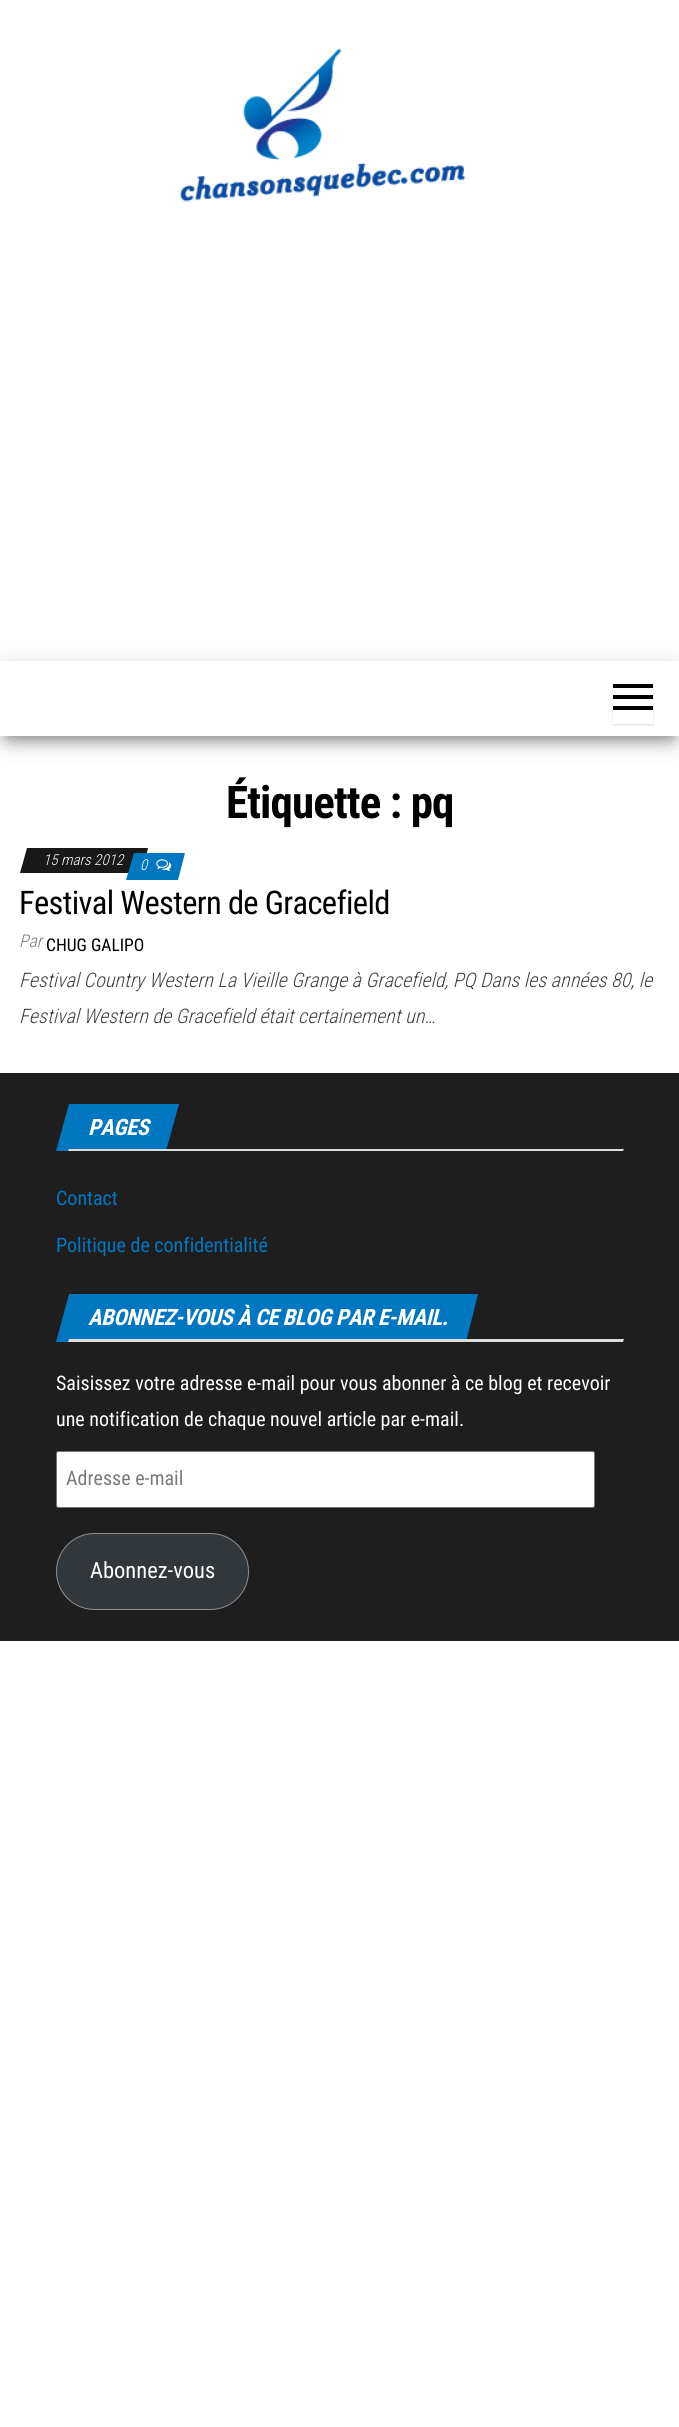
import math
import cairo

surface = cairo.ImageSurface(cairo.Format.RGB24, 679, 2427)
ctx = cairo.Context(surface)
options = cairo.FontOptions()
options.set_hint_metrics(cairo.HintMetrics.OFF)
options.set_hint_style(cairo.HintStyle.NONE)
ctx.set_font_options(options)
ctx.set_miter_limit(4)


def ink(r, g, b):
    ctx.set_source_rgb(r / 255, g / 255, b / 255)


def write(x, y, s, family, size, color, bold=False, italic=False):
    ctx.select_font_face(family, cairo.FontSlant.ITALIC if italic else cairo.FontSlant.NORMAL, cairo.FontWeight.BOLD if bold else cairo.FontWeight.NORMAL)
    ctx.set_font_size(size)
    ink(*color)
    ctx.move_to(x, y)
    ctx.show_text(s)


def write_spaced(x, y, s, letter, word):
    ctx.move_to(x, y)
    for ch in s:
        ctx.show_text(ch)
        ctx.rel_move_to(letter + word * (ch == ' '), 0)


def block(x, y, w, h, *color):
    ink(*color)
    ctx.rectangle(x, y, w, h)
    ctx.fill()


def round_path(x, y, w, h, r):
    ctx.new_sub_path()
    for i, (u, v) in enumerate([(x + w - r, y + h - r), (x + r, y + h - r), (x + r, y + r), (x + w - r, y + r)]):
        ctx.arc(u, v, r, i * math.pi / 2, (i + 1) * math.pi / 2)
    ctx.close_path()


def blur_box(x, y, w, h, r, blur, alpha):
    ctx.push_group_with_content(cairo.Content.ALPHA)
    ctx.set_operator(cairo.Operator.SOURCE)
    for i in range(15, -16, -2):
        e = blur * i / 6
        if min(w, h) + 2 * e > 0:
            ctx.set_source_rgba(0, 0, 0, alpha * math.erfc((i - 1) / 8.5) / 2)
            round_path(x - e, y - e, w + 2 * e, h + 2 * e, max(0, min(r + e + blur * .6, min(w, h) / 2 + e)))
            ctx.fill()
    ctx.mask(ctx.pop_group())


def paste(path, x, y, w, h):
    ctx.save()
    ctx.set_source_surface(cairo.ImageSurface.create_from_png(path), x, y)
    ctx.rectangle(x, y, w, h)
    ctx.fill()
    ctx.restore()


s1 = dict(family="Roboto Condensed Light", size=15, color=(255, 255, 255), italic=True)
s2 = dict(family="Roboto Condensed Light", size=17.5, color=(121, 121, 121), italic=True)
s3 = dict(family="Roboto Condensed", size=17.5, color=(0, 0, 0))
s4 = dict(family="Roboto Condensed Light", size=20, color=(64, 64, 64), italic=True)
s5 = dict(family="Roboto Condensed", size=20, color=(0, 119, 192))
s6 = dict(family="Roboto Condensed", size=20, color=(255, 255, 255))
s7 = dict(family="Roboto Condensed", size=20, color=(121, 121, 121))
s8 = dict(family="Roboto Condensed", size=22.5, color=(255, 255, 255))

ink(255, 255, 255)
ctx.paint()
paste("pic1.png", 179, 48, 287, 154)
ink(0, 0, 0)
blur_box(6, 678, 668, 62, 0, 6, 0.2)
blur_box(0, 665, 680, 75, 0, 12.5, 0.12)
blur_box(15, 689, 650, 45, 0, 12.5, 0.42)
block(0, 661, 679, 75, 255, 255, 255)
ctx.save()
ctx.set_fill_rule(cairo.FillRule.EVEN_ODD)
ctx.new_path()
ctx.move_to(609, 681)
ctx.line_to(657, 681)
ctx.line_to(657, 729)
ctx.line_to(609, 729)
ctx.close_path()
ctx.move_to(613, 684)
ctx.line_to(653, 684)
ctx.line_to(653, 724)
ctx.line_to(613, 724)
ctx.close_path()
ctx.clip()
ink(0, 0, 0)
blur_box(613, 685, 40, 40, 0, 1, 0.15)
ctx.restore()
block(613, 684, 40, 4, 0, 0, 0)
block(613, 695, 40, 4, 0, 0, 0)
block(613, 706, 40, 4, 0, 0, 0)
ctx.select_font_face("Roboto Condensed", cairo.FontSlant.NORMAL, cairo.FontWeight.BOLD)
ctx.set_font_size(45)
write_spaced(226, 818, "Étiquette : pq", -0.9, 0)
ink(25, 25, 25)
ctx.new_path()
ctx.move_to(27, 848)
ctx.line_to(148, 848)
ctx.line_to(142, 873)
ctx.line_to(20, 873)
ctx.close_path()
ctx.fill()
write(43, 865, "15 mars 2012", **s1)
ink(0, 119, 192)
ctx.new_path()
ctx.move_to(134, 853)
ctx.line_to(185, 853)
ctx.line_to(178, 880)
ctx.line_to(126, 880)
ctx.close_path()
ctx.fill()
write(140, 870, "0", **s1)
paste("pic2.png", 156, 859, 16, 12)
ctx.select_font_face("Roboto Condensed")
ctx.set_font_size(32.5)
ink(0, 0, 0)
write_spaced(19, 914, "Festival Western de Gracefield", -0.65, 0)
write(19, 947, "Par", **s2)
write(46, 951, "CHUG GALIPO", **s3)
write(19, 987, "Festival Country Western La Vieille Grange à Gracefield, PQ Dans les années 80, le", **s4)
write(19, 1023, "Festival Western de Gracefield était certainement un…", **s4)
block(0, 1073, 679, 568, 30, 30, 30)
ink(0, 119, 192)
ctx.new_path()
ctx.move_to(69, 1104)
ctx.line_to(179, 1104)
ctx.line_to(166, 1151)
ctx.line_to(56, 1151)
ctx.close_path()
ctx.fill()
ctx.select_font_face("Roboto Condensed", cairo.FontSlant.ITALIC, cairo.FontWeight.BOLD)
ctx.set_font_size(22.5)
ink(255, 255, 255)
write_spaced(88, 1135, "PAGES", -0.45, 0)
ink(221, 221, 221)
ctx.new_path()
ctx.move_to(69, 1149)
ctx.line_to(624, 1149)
ctx.line_to(623, 1151)
ctx.line_to(68, 1151)
ctx.close_path()
ctx.fill()
write(56, 1205, "Contact", **s5)
write(56, 1252, "Politique de confidentialité", **s5)
ctx.new_path()
ctx.move_to(69, 1294)
ctx.line_to(478, 1294)
ctx.line_to(466, 1342)
ctx.line_to(56, 1342)
ctx.close_path()
ctx.fill()
ctx.select_font_face("Roboto Condensed", cairo.FontSlant.ITALIC, cairo.FontWeight.BOLD)
ctx.set_font_size(22.5)
ink(255, 255, 255)
write_spaced(88, 1325, "ABONNEZ-VOUS À CE BLOG PAR E-MAIL.", -0.45, 0)
ink(221, 221, 221)
ctx.new_path()
ctx.move_to(69, 1339)
ctx.line_to(624, 1339)
ctx.line_to(623, 1342)
ctx.line_to(68, 1342)
ctx.close_path()
ctx.fill()
write(56, 1390, "Saisissez votre adresse e-mail pour vous abonner à ce blog et recevoir", **s6)
write(56, 1426, "une notification de chaque nouvel article par e-mail.", **s6)
round_path(56.5, 1451.5, 538, 56, 2)
ctx.fill_preserve()
ink(118, 118, 118)
ctx.set_line_width(1)
ctx.stroke()
write(66, 1485, "Adresse e-mail", **s7)
ink(50, 55, 60)
round_path(56.5, 1533.5, 192, 76, 38)
ctx.fill_preserve()
ink(142, 142, 142)
ctx.stroke()
write(90, 1578, "Abonnez-vous", **s8)
surface.write_to_png("screenshot.png")
